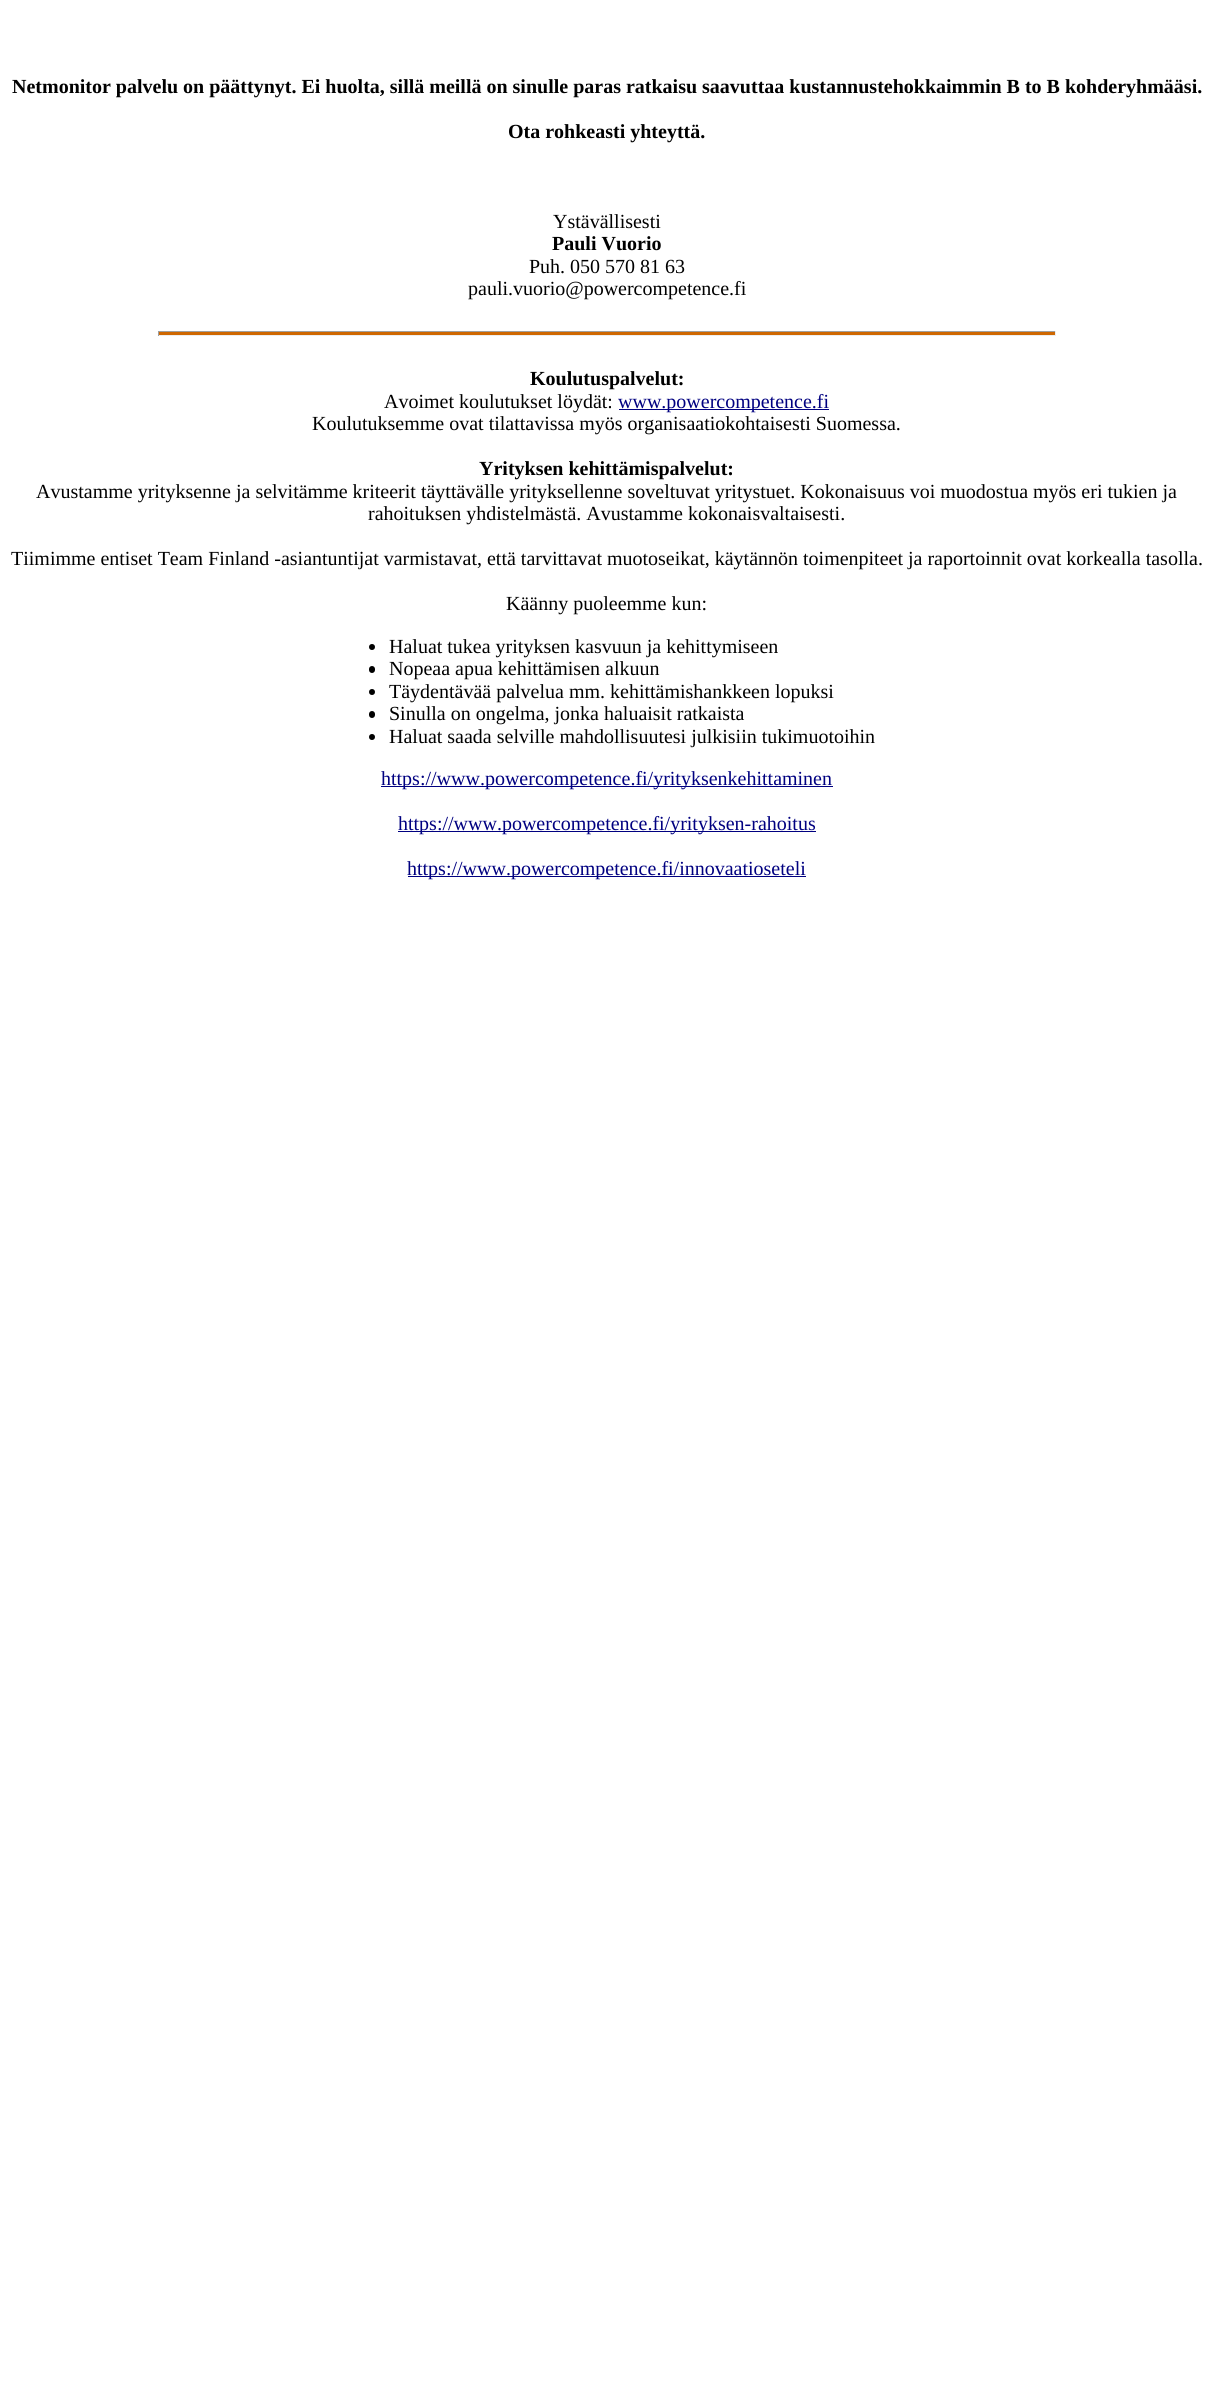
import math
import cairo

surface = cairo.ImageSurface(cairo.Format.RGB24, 1213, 2407)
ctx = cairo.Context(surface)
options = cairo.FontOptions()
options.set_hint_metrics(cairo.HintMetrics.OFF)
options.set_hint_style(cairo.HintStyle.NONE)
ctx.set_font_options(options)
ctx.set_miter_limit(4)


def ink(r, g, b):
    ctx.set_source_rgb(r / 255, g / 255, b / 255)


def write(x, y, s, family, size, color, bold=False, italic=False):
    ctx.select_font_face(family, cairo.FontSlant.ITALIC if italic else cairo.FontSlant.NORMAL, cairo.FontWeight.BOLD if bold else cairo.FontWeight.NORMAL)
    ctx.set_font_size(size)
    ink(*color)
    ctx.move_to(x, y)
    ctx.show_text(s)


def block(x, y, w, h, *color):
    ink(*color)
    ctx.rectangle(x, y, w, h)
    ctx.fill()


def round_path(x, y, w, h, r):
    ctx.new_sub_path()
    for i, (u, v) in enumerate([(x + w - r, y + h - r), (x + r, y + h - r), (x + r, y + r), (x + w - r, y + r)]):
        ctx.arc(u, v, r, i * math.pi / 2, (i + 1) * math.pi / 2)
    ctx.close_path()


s1 = dict(family="Liberation Serif", size=20, color=(0, 0, 0), bold=True)
s2 = dict(family="Liberation Serif", size=20, color=(0, 0, 0))
s3 = dict(family="Liberation Serif", size=20, color=(0, 0, 128))

ink(255, 255, 255)
ctx.paint()
write(12, 93, "Netmonitor palvelu on päättynyt. Ei huolta, sillä meillä on sinulle paras ratkaisu saavuttaa kustannustehokkaimmin B to B kohderyhmääsi.", **s1)
write(508, 138, "Ota rohkeasti yhteyttä.", **s1)
write(553, 228, "Ystävällisesti", **s2)
write(552, 250, "Pauli Vuorio", **s1)
write(529, 273, "Puh. 050 570 81 63", **s2)
write(468, 295, "pauli.vuorio@powercompetence.fi", **s2)
block(158, 332, 898, 3, 206, 103, 0)
block(158, 331, 898, 1, 159, 159, 159)
block(1055, 331, 1, 5, 238, 238, 238)
block(158, 335, 898, 1, 238, 238, 238)
block(158, 331, 1, 5, 159, 159, 159)
write(530, 385, "Koulutuspalvelut:", **s1)
write(384, 408, "Avoimet koulutukset löydät:", **s2)
block(619, 409, 210, 1, 0, 0, 128)
write(618, 408, "www.powercompetence.fi", **s3)
write(312, 430, "Koulutuksemme ovat tilattavissa myös organisaatiokohtaisesti Suomessa.", **s2)
write(479, 475, "Yrityksen kehittämispalvelut:", **s1)
write(36, 498, "Avustamme yrityksenne ja selvitämme kriteerit täyttävälle yrityksellenne soveltuvat yritystuet. Kokonaisuus voi muodostua myös eri tukien ja", **s2)
write(368, 520, "rahoituksen yhdistelmästä. Avustamme kokonaisvaltaisesti.", **s2)
write(11, 565, "Tiimimme entiset Team Finland -asiantuntijat varmistavat, että tarvittavat muotoseikat, käytännön toimenpiteet ja raportoinnit ovat korkealla tasolla.", **s2)
write(506, 610, "Käänny puoleemme kun:", **s2)
ctx.new_path()
ctx.arc(372, 647, 3, 0, 2 * math.pi)
ctx.fill()
write(389, 653, "Haluat tukea yrityksen kasvuun ja kehittymiseen", **s2)
round_path(369, 666, 6, 7, 3)
ctx.fill()
write(389, 675, "Nopeaa apua kehittämisen alkuun", **s2)
ctx.new_path()
ctx.arc(372, 692, 3, 0, 2 * math.pi)
ctx.fill()
write(389, 698, "Täydentävää palvelua mm. kehittämishankkeen lopuksi", **s2)
round_path(369, 711, 6, 7, 3)
ctx.fill()
write(389, 720, "Sinulla on ongelma, jonka haluaisit ratkaista", **s2)
ctx.new_path()
ctx.arc(372, 737, 3, 0, 2 * math.pi)
ctx.fill()
write(389, 743, "Haluat saada selville mahdollisuutesi julkisiin tukimuotoihin", **s2)
block(381, 786, 452, 1, 0, 0, 128)
write(381, 785, "https://www.powercompetence.fi/yrityksenkehittaminen", **s3)
block(398, 831, 418, 1, 0, 0, 128)
write(398, 830, "https://www.powercompetence.fi/yrityksen-rahoitus", **s3)
block(408, 876, 398, 1, 0, 0, 128)
write(407, 875, "https://www.powercompetence.fi/innovaatioseteli", **s3)
surface.write_to_png("screenshot.png")
